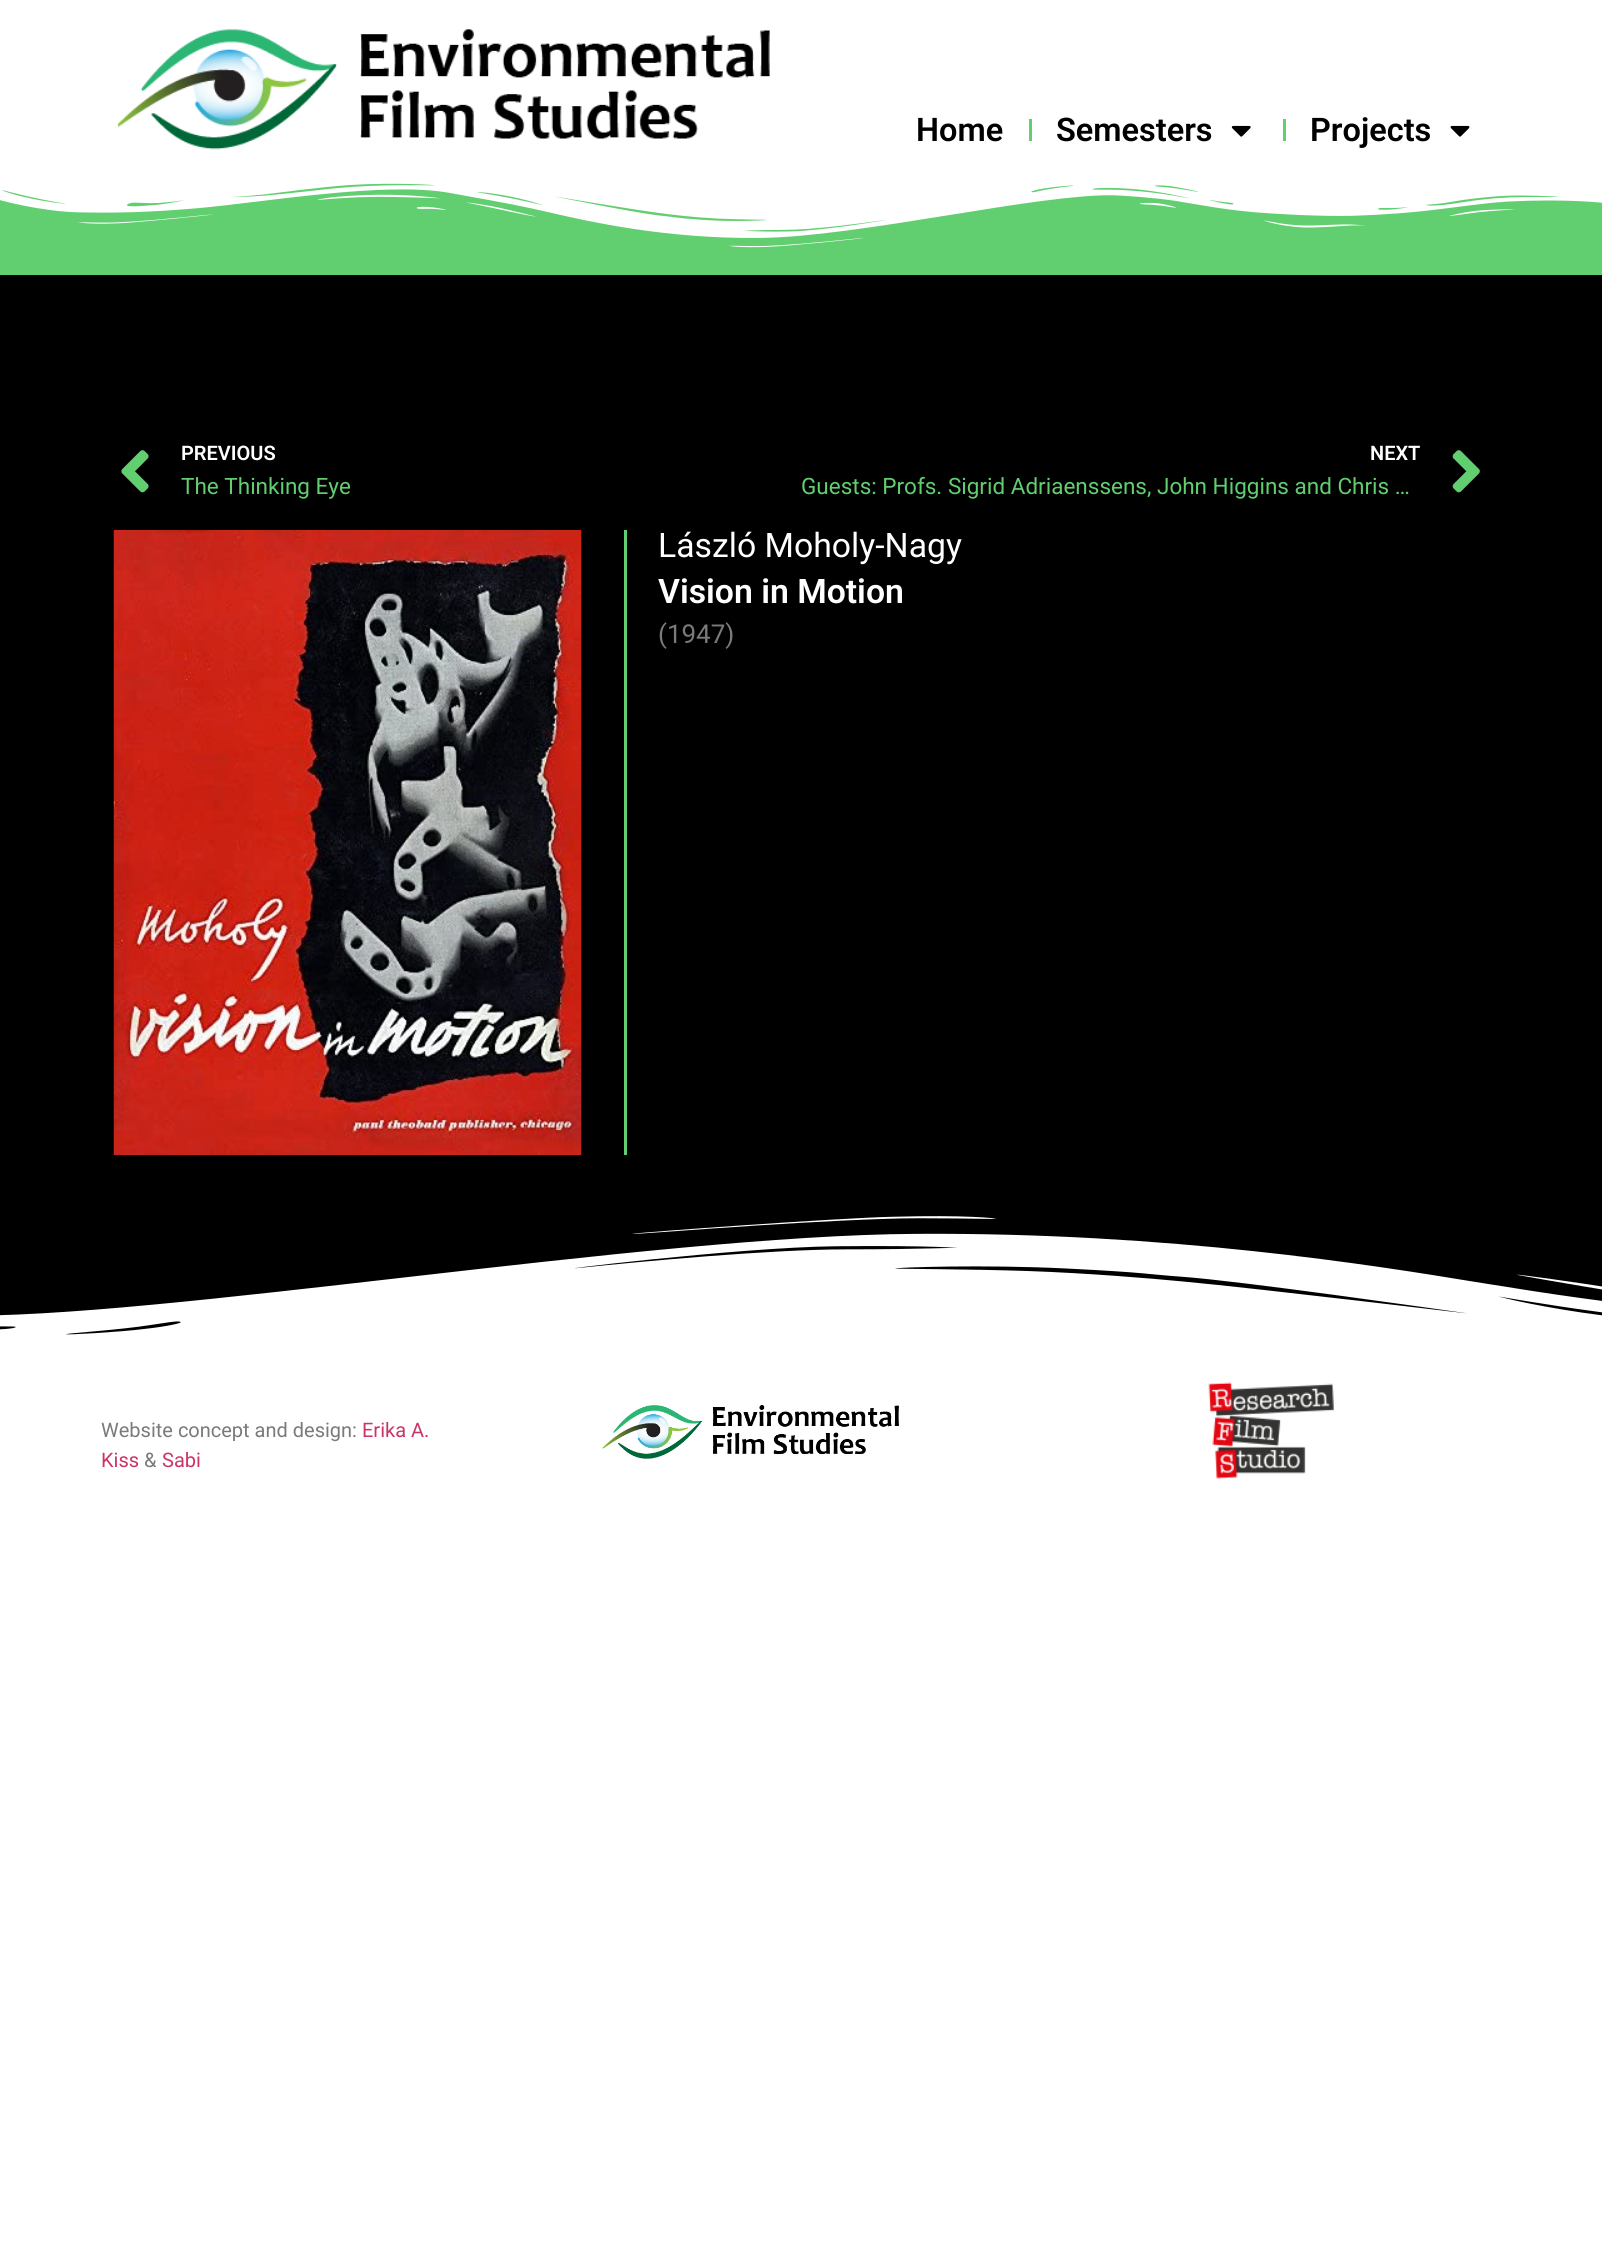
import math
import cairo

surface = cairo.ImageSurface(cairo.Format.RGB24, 1602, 2247)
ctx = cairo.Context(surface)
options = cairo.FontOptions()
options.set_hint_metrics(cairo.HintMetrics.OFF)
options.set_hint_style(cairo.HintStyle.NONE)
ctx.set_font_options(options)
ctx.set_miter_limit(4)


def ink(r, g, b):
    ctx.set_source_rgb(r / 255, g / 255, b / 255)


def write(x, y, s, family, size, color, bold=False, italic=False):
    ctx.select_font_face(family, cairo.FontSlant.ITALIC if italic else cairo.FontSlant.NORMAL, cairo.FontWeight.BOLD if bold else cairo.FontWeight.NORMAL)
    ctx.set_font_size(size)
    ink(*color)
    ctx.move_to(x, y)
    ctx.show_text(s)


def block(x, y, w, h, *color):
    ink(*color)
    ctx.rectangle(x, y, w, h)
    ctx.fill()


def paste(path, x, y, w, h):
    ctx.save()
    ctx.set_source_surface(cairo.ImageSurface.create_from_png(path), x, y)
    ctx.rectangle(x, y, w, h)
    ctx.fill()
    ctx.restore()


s1 = dict(family="Roboto SemiBold", size=32.5, color=(0, 0, 0))
s2 = dict(family="Roboto SemiBold", size=20, color=(255, 255, 255))
s3 = dict(family="Roboto", size=22.5, color=(97, 206, 112))
s4 = dict(family="Roboto", size=33.75, color=(255, 255, 255))
s5 = dict(family="Roboto SemiBold", size=33.75, color=(255, 255, 255))
s6 = dict(family="Roboto", size=26, color=(122, 122, 122))
s7 = dict(family="Roboto", size=20, color=(122, 122, 122))
s8 = dict(family="Roboto", size=20, color=(204, 51, 102))

ink(255, 255, 255)
ctx.paint()
paste("pic1.png", 117, 29, 653, 121)
write(916, 141, "Home", **s1)
block(1029, 119, 3, 22, 97, 206, 112)
write(1056, 141, "Semesters", **s1)
paste("pic2.png", 1231, 125, 20, 12)
block(1283, 119, 3, 22, 97, 206, 112)
write(1310, 141, "Projects", **s1)
paste("pic3.png", 1450, 125, 20, 12)
block(0, 183, 1602, 92, 97, 206, 112)
paste("pic4.png", 0, 175, 1602, 73)
block(0, 275, 1602, 1060, 0, 0, 0)
paste("pic5.png", 121, 450, 28, 43)
write(181, 460, "PREVIOUS", **s2)
write(181, 494, "The Thinking Eye", **s3)
write(1370, 460, "NEXT", **s2)
write(801, 494, "Guests: Profs. Sigrid Adriaenssens, John Higgins and Chris …", **s3)
paste("pic6.png", 1452, 450, 28, 43)
block(624, 530, 3, 625, 97, 206, 112)
paste("pic7.png", 113, 530, 469, 625)
write(658, 557, "László Moholy-Nagy", **s4)
write(658, 603, "Vision in Motion", **s5)
write(658, 643, "(1947)", **s6)
paste("pic8.png", 0, 1216, 1602, 139)
write(101, 1437, "Website concept and design:", **s7)
write(362, 1437, "Erika A.", **s8)
write(101, 1467, "Kiss", **s8)
write(144, 1467, "&", **s7)
write(162, 1467, "Sabi", **s8)
paste("pic9.png", 602, 1405, 297, 54)
paste("pic10.png", 1208, 1382, 126, 97)
surface.write_to_png("screenshot.png")
